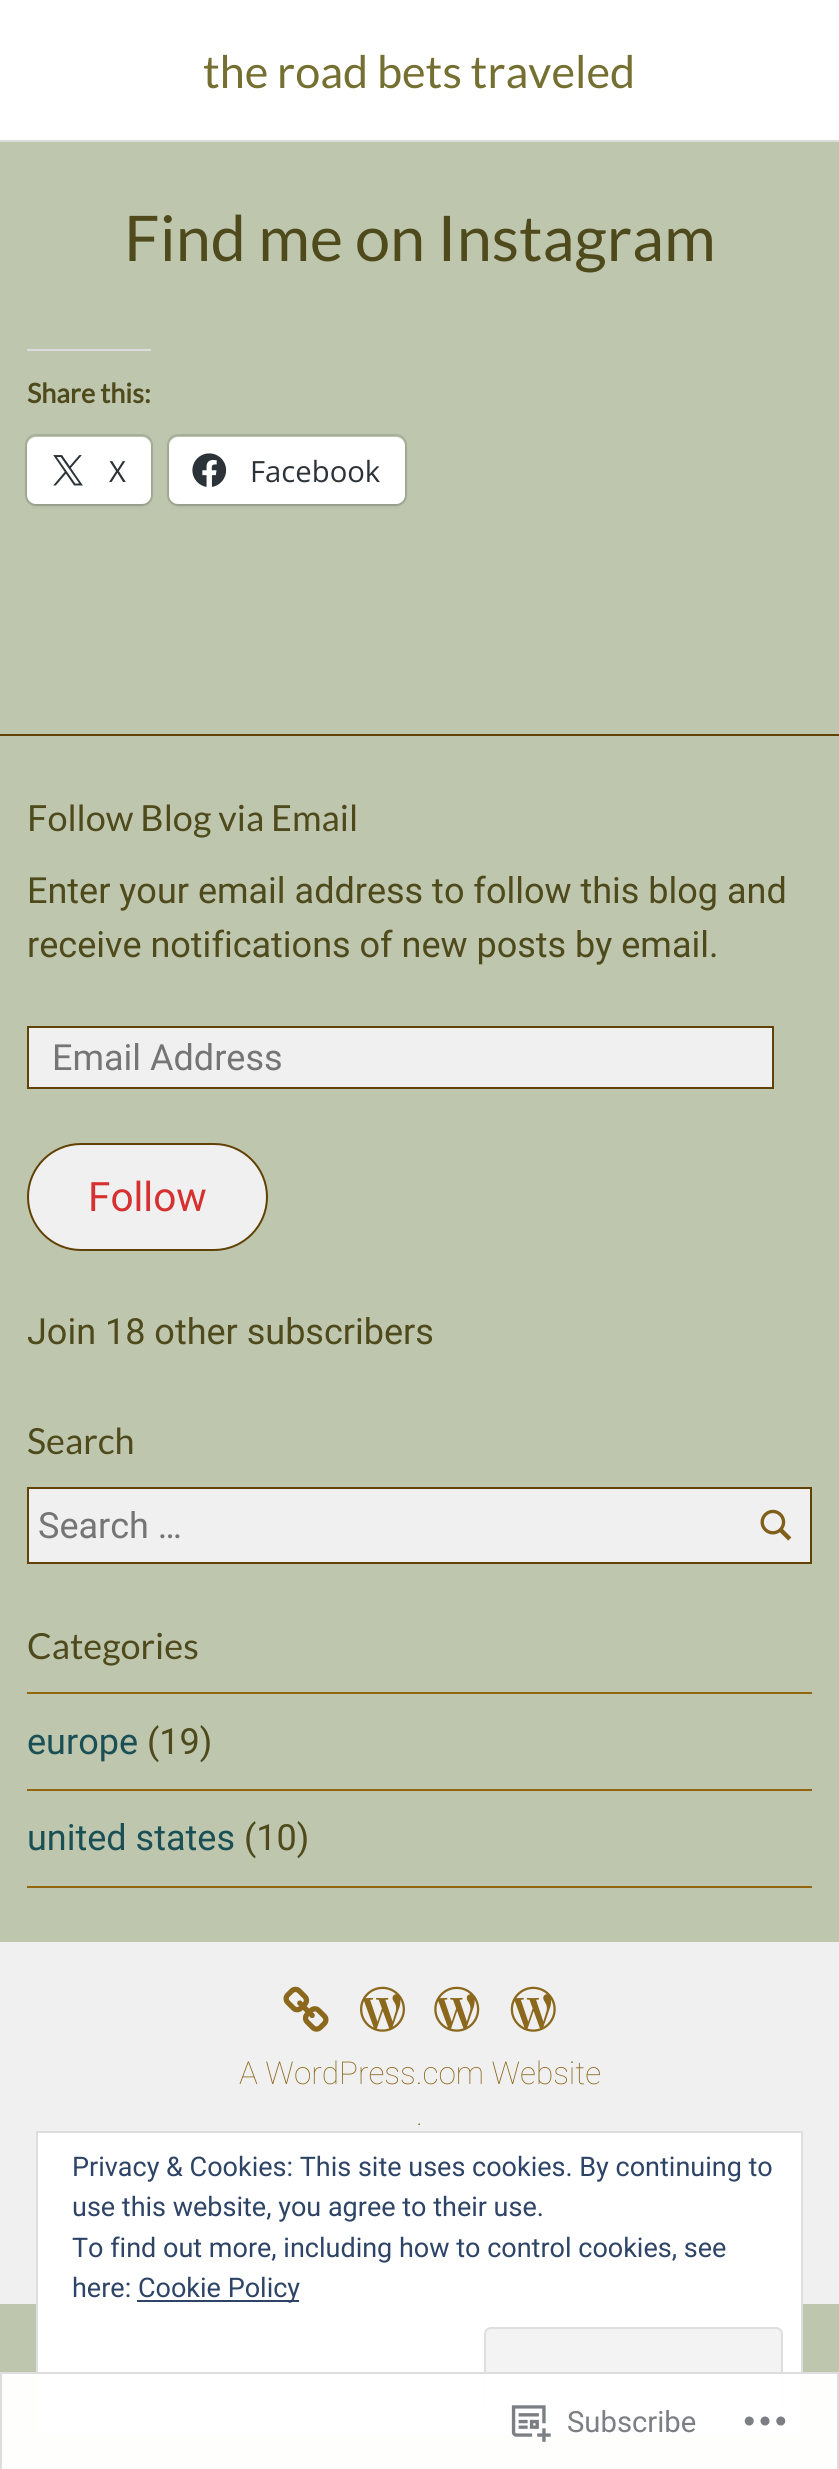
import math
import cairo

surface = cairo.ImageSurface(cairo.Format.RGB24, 839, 2469)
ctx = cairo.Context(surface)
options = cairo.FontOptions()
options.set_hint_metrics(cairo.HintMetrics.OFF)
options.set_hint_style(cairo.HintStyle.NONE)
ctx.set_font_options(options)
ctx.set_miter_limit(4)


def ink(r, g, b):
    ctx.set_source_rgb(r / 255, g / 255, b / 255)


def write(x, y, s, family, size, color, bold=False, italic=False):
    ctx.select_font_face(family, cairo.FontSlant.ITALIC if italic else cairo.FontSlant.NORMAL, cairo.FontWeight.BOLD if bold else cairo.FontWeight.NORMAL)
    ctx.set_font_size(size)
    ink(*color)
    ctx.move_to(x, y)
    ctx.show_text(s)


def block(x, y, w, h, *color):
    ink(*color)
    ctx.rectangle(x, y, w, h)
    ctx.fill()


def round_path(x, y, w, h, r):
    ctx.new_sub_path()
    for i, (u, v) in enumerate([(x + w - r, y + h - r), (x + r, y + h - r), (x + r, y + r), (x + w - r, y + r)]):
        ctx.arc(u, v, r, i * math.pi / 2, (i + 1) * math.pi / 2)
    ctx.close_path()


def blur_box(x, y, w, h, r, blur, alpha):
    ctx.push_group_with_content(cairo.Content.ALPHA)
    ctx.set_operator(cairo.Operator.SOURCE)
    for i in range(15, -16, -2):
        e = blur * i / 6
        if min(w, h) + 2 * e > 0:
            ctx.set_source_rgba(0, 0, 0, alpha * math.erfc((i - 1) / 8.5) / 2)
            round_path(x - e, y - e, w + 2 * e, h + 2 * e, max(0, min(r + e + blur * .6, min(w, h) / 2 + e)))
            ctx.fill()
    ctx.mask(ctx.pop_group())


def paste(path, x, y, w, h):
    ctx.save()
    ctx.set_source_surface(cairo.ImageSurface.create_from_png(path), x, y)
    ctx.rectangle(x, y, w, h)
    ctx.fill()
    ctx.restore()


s1 = dict(family="Lato", size=45, color=(117, 112, 50))
s2 = dict(family="Lato", size=63, color=(78, 74, 28))
s3 = dict(family="Lato", size=27, color=(78, 74, 28), bold=True)
s4 = dict(family="Open Sans", size=29.25, color=(44, 51, 56))
s5 = dict(family="Lato", size=36, color=(78, 74, 28))
s6 = dict(family="Roboto", size=36, color=(78, 74, 28))
s7 = dict(family="Roboto", size=36, color=(117, 117, 117))
s8 = dict(family="Roboto", size=40.5, color=(214, 48, 49))
s9 = dict(family="Roboto", size=36, color=(26, 80, 85))
s10 = dict(family="Roboto Thin", size=31.5, color=(139, 104, 28))
s11 = dict(family="Roboto", size=27, color=(46, 68, 103))
s12 = dict(family="Roboto", size=29.25, color=(123, 127, 132))

ink(190, 198, 174)
ctx.paint()
block(0, 0, 839, 140, 255, 255, 255)
block(0, 140, 839, 2, 220, 220, 220)
write(203, 88, "the road bets traveled", **s1)
write(124, 261, "Find me on Instagram", **s2)
block(27, 349, 124, 2, 220, 220, 222)
write(27, 403, "Share this:", **s3)
round_path(26, 435, 126, 70, 10)
ink(167, 174, 153)
ctx.stroke()
ink(0, 0, 0)
blur_box(27, 439, 124, 67, 9, 2, 0.12)
ink(255, 255, 255)
round_path(27, 437, 124, 67, 9)
ctx.fill()
paste("pic1.png", 53, 455, 30, 31)
write(109, 482, "X", **s4)
round_path(168, 435, 238, 70, 10)
ink(167, 174, 153)
ctx.stroke()
ink(0, 0, 0)
blur_box(169, 439, 236, 67, 9, 2, 0.12)
ink(255, 255, 255)
round_path(169, 437, 236, 67, 9)
ctx.fill()
paste("pic2.png", 192, 453, 35, 34)
write(250, 482, "Facebook", **s4)
block(0, 734, 839, 2, 97, 66, 4)
write(27, 831, "Follow Blog via Email", **s5)
write(27, 903, "Enter your email address to follow this blog and", **s6)
write(27, 957, "receive notifications of new posts by email.", **s6)
ink(240, 240, 240)
ctx.rectangle(28, 1027, 745, 61)
ctx.fill_preserve()
ink(97, 66, 4)
ctx.stroke()
write(52, 1070, "Email Address", **s7)
ink(240, 240, 240)
round_path(28, 1144, 239, 106, 53)
ctx.fill_preserve()
ink(97, 66, 4)
ctx.stroke()
write(88, 1211, "Follow", **s8)
write(27, 1344, "Join 18 other subscribers", **s6)
write(27, 1454, "Search", **s5)
ink(240, 240, 240)
ctx.rectangle(28, 1488, 783, 75)
ctx.fill_preserve()
ink(97, 66, 4)
ctx.stroke()
write(38, 1538, "Search …", **s7)
paste("pic3.png", 760, 1509, 32, 32)
write(27, 1659, "Categories", **s5)
block(27, 1692, 785, 2, 146, 102, 15)
block(27, 1789, 785, 2, 146, 102, 15)
write(27, 1754, "europe", **s9)
write(147, 1754, "(19)", **s6)
block(27, 1886, 785, 2, 146, 102, 15)
write(27, 1850, "united states", **s9)
write(244, 1850, "(10)", **s6)
block(0, 1942, 839, 362, 240, 240, 240)
paste("pic4.png", 283, 1986, 46, 46)
paste("pic5.png", 360, 1986, 45, 46)
paste("pic6.png", 434, 1986, 46, 46)
paste("pic7.png", 510, 1986, 46, 46)
write(239, 2084, "A WordPress.com Website", **s10)
write(416, 2125, ".", **s10)
ink(255, 255, 255)
ctx.rectangle(37, 2132, 765, 302)
ctx.fill_preserve()
ink(222, 222, 222)
ctx.stroke()
write(72, 2176, "Privacy & Cookies: This site uses cookies. By continuing to", **s11)
write(72, 2216, "use this website, you agree to their use.", **s11)
write(72, 2257, "To find out more, including how to control cookies, see", **s11)
write(72, 2297, "here:", **s11)
block(137, 2300, 162, 2, 46, 68, 103)
write(138, 2297, "Cookie Policy", **s11)
ink(243, 243, 243)
round_path(485, 2328, 297, 85, 6)
ctx.fill_preserve()
ink(222, 222, 222)
ctx.stroke()
ctx.set_source_rgba(1, 1, 1, 0.98)
ctx.rectangle(0, 2372, 839, 97)
ctx.fill()
ctx.rectangle(1, 2373, 837, 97)
ctx.set_source_rgba(0.863, 0.863, 0.871, 0.98)
ctx.stroke()
paste("pic8.png", 511, 2405, 40, 37)
write(567, 2432, "Subscribe", **s12)
paste("pic9.png", 744, 2416, 42, 10)
surface.write_to_png("screenshot.png")
